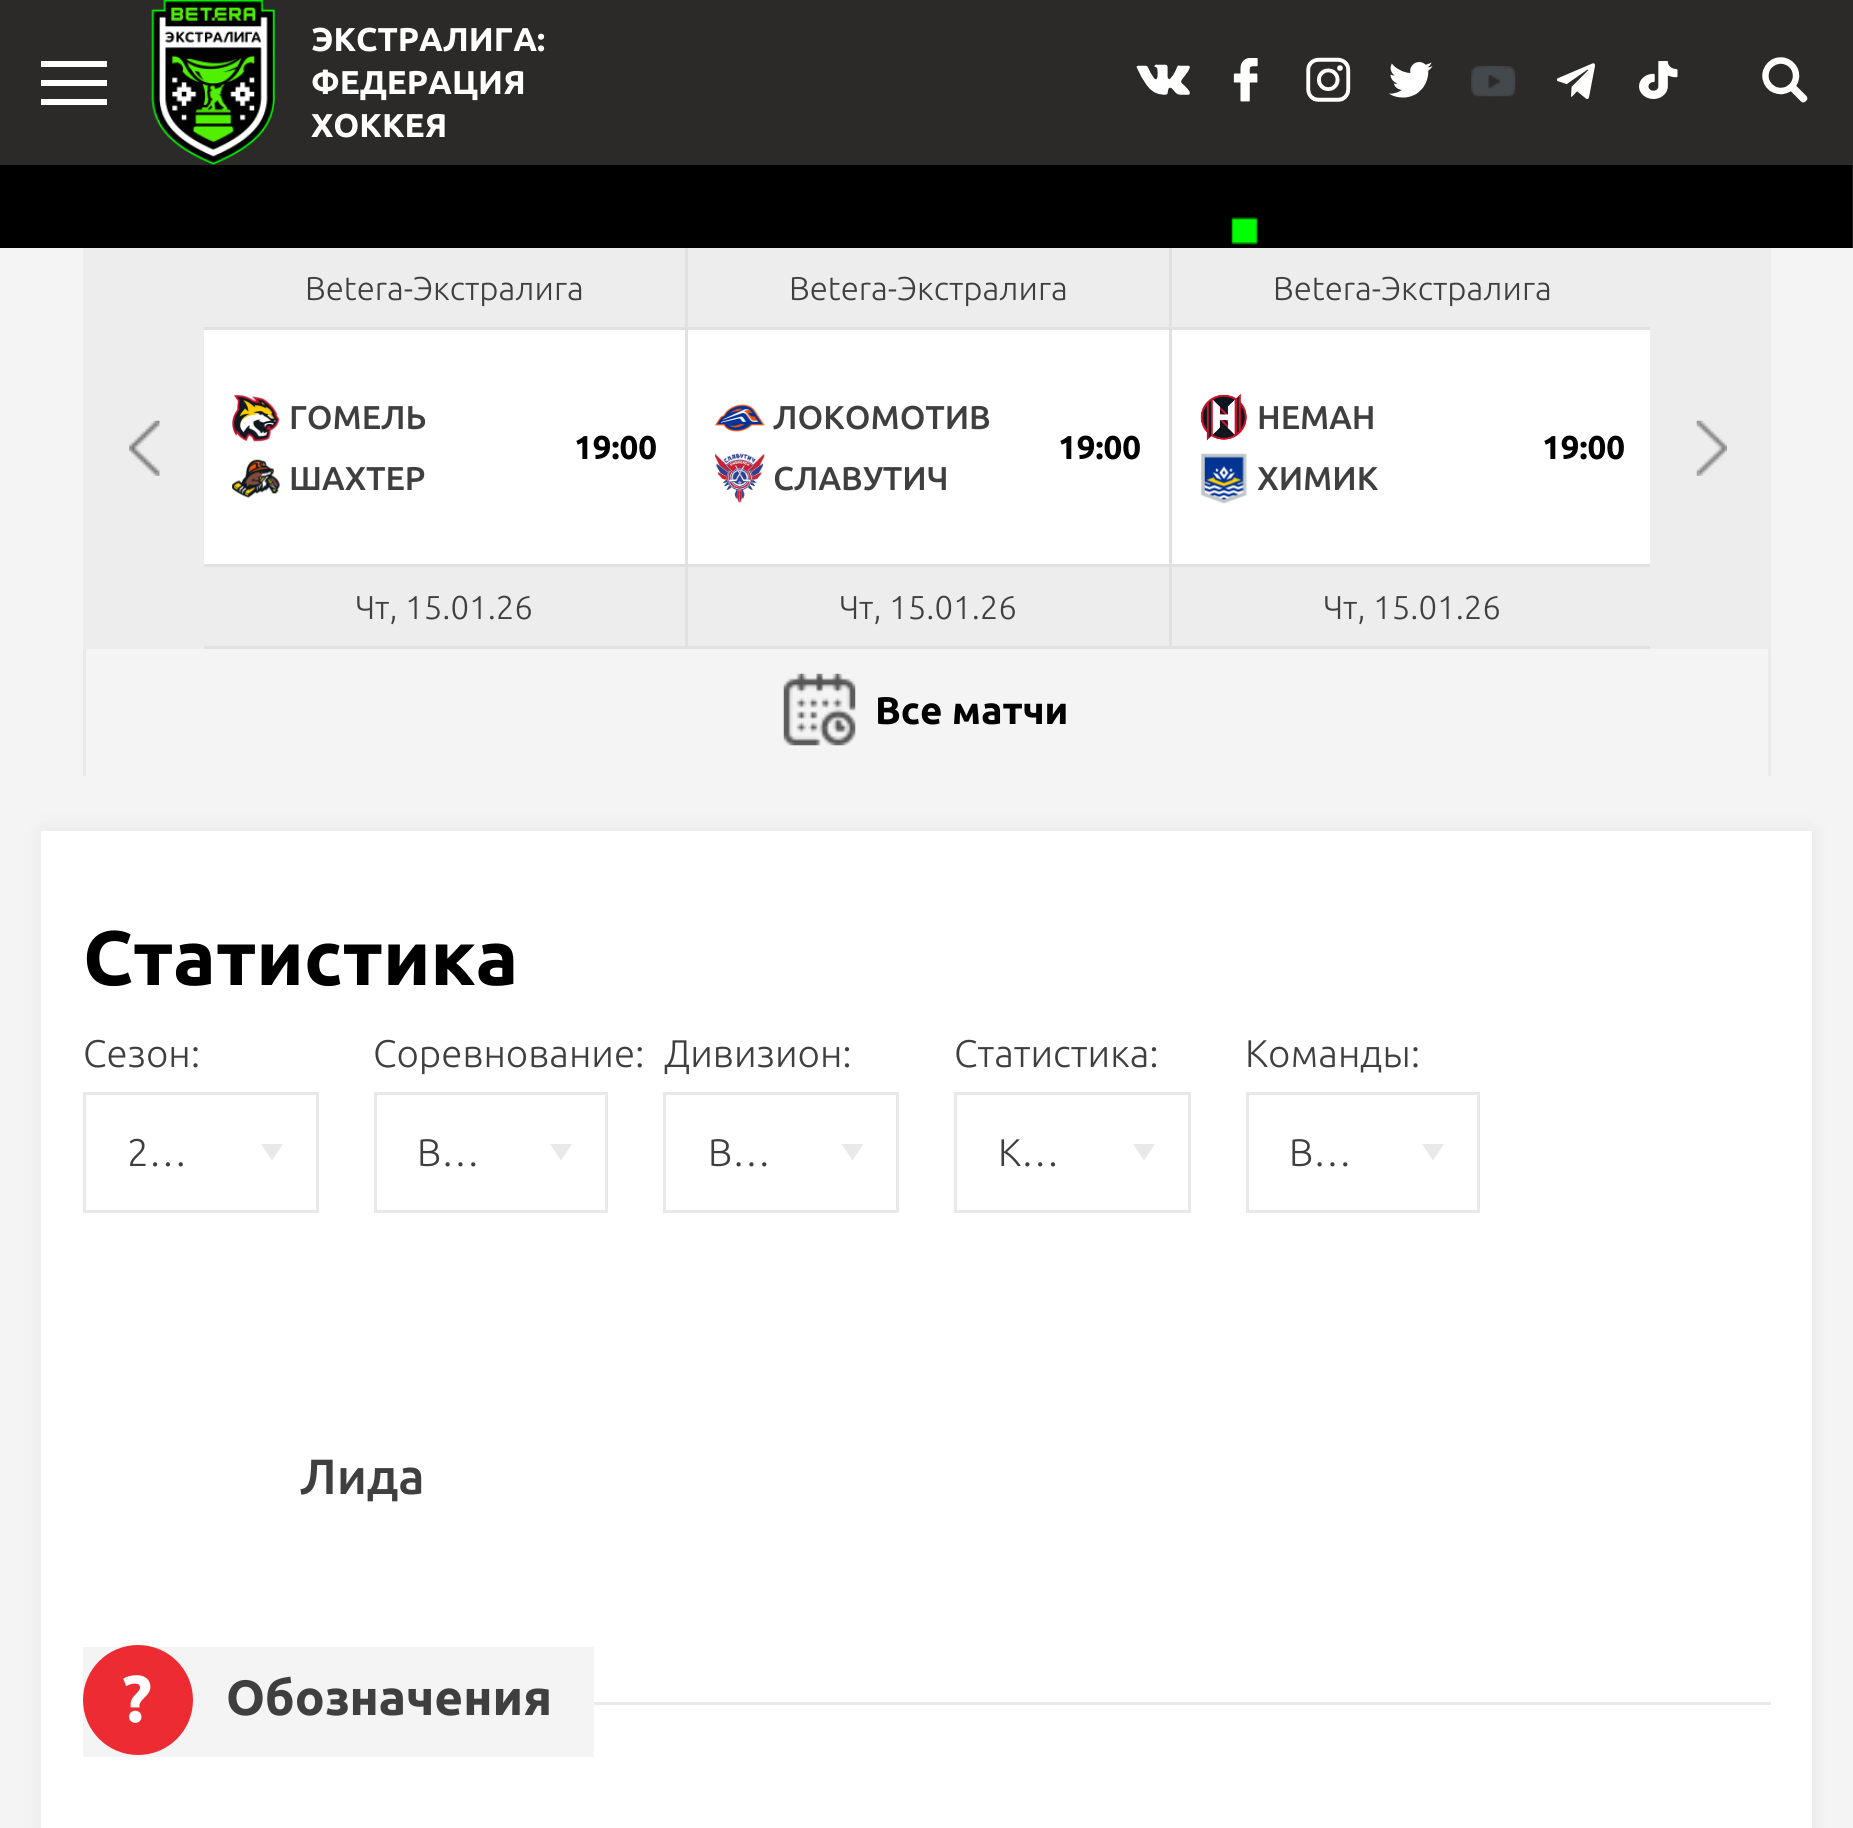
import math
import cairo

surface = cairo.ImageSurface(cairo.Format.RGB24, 1853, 1828)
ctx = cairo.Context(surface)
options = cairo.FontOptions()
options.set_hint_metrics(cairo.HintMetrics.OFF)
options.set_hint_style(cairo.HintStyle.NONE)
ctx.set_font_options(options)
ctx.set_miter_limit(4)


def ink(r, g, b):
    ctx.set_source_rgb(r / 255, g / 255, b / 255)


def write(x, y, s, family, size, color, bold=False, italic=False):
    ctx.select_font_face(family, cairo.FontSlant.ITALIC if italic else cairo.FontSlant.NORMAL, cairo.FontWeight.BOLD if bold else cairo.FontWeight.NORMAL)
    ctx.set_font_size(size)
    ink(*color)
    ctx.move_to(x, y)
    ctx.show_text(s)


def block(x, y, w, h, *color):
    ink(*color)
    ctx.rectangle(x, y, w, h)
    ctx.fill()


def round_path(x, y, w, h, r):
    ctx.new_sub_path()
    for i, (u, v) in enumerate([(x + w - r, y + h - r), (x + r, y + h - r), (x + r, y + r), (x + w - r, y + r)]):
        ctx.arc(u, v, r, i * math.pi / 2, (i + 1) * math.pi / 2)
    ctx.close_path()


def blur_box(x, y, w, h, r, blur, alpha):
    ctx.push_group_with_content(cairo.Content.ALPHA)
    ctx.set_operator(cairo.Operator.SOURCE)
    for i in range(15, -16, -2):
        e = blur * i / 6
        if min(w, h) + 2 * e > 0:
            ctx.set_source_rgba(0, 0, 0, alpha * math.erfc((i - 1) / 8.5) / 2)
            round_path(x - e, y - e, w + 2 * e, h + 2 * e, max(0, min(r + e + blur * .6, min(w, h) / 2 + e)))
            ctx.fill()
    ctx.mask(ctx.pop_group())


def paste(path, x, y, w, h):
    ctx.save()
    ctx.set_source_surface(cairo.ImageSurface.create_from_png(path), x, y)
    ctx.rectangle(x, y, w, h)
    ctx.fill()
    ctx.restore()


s1 = dict(family="Ubuntu", size=33, color=(255, 255, 255), bold=True)
s2 = dict(family="Ubuntu Light", size=33, color=(63, 63, 63))
s3 = dict(family="Ubuntu Medium", size=33, color=(63, 63, 63))
s4 = dict(family="Ubuntu", size=33, color=(0, 0, 0), bold=True)
s5 = dict(family="Ubuntu", size=38.5, color=(0, 0, 0), bold=True)
s6 = dict(family="Ubuntu", size=77, color=(0, 0, 0), bold=True)
s7 = dict(family="Ubuntu Light", size=38.5, color=(63, 63, 63))
s8 = dict(family="Ubuntu Medium", size=49.5, color=(63, 63, 63))
s9 = dict(family="Ubuntu", size=66, color=(255, 255, 255), bold=True)
s10 = dict(family="Ubuntu", size=49.5, color=(63, 63, 63), bold=True)

ink(255, 255, 255)
ctx.paint()
block(0, 0, 1853, 165, 43, 42, 41)
block(41, 61, 66, 6, 255, 255, 255)
block(41, 80, 66, 6, 255, 255, 255)
block(41, 99, 66, 6, 255, 255, 255)
paste("pic1.png", 151, 0, 124, 165)
write(311, 51, "ЭКСТРАЛИГА:", **s1)
write(311, 94, "ФЕДЕРАЦИЯ", **s1)
write(311, 137, "ХОККЕЯ", **s1)
paste("pic2.png", 1136, 64, 54, 31)
paste("pic3.png", 1233, 58, 25, 44)
paste("pic4.png", 1306, 57, 45, 45)
paste("pic5.png", 1389, 62, 44, 36)
paste("pic6.png", 1471, 66, 45, 31)
paste("pic7.png", 1557, 63, 38, 36)
paste("pic8.png", 1639, 61, 39, 38)
paste("pic9.png", 1762, 57, 46, 46)
paste("pic10.png", 0, 165, 1853, 83)
block(0, 248, 1853, 1580, 244, 244, 244)
block(83, 248, 1688, 401, 237, 237, 237)
paste("pic11.png", 129, 420, 31, 56)
block(685, 248, 3, 82, 225, 225, 225)
block(204, 327, 484, 3, 225, 225, 225)
write(305, 300, "Betera-Экстралига", **s2)
block(204, 330, 481, 234, 255, 255, 255)
block(685, 330, 3, 319, 225, 225, 225)
block(1169, 330, 3, 319, 225, 225, 225)
block(204, 564, 1446, 3, 225, 225, 225)
paste("pic12.png", 232, 395, 48, 47)
write(289, 429, "ГОМЕЛЬ", **s3)
write(574, 459, "19:00", **s4)
paste("pic13.png", 232, 459, 48, 39)
write(289, 490, "ШАХТЕР", **s3)
block(204, 646, 484, 3, 225, 225, 225)
write(355, 619, "Чт, 15.01.26", **s2)
block(1169, 248, 3, 82, 225, 225, 225)
block(688, 327, 962, 3, 225, 225, 225)
write(789, 300, "Betera-Экстралига", **s2)
block(688, 330, 481, 234, 255, 255, 255)
paste("pic14.png", 715, 404, 50, 28)
write(773, 429, "ЛОКОМОТИВ", **s3)
write(1058, 459, "19:00", **s4)
paste("pic15.png", 715, 453, 50, 50)
write(773, 490, "СЛАВУТИЧ", **s3)
block(688, 646, 962, 3, 225, 225, 225)
write(839, 619, "Чт, 15.01.26", **s2)
write(1273, 300, "Betera-Экстралига", **s2)
block(1172, 330, 478, 234, 255, 255, 255)
paste("pic16.png", 1200, 394, 47, 47)
write(1257, 429, "НЕМАН", **s3)
write(1542, 459, "19:00", **s4)
paste("pic17.png", 1201, 453, 46, 51)
write(1257, 490, "ХИМИК", **s3)
write(1323, 619, "Чт, 15.01.26", **s2)
paste("pic18.png", 1696, 420, 31, 56)
block(1768, 649, 3, 127, 235, 235, 235)
block(83, 649, 3, 127, 233, 233, 233)
paste("pic19.png", 783, 673, 73, 73)
write(875, 724, "Все матчи", **s5)
ink(85, 85, 85)
blur_box(44, 833, 1766, 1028, 0, 11, 0.1)
block(41, 831, 1771, 997, 255, 255, 255)
write(83, 985, "Статистика", **s6)
write(83, 1067, "Сезон:", **s7)
ctx.rectangle(84.5, 1093.5, 233, 118)
ink(233, 233, 233)
ctx.set_line_width(3)
ctx.stroke()
write(127, 1166, "2…", **s7)
ink(233, 233, 233)
ctx.new_path()
ctx.move_to(261, 1144)
ctx.line_to(283, 1144)
ctx.line_to(272, 1160.5)
ctx.close_path()
ctx.fill()
write(373, 1067, "Соревнование:", **s7)
ctx.rectangle(375.5, 1093.5, 231, 118)
ink(233, 233, 233)
ctx.stroke()
write(417, 1166, "B…", **s7)
ink(233, 233, 233)
ctx.new_path()
ctx.move_to(550, 1144)
ctx.line_to(572, 1144)
ctx.line_to(561, 1160.5)
ctx.close_path()
ctx.fill()
write(664, 1067, "Дивизион:", **s7)
ctx.rectangle(664.5, 1093.5, 233, 118)
ink(233, 233, 233)
ctx.stroke()
write(708, 1166, "В…", **s7)
ink(233, 233, 233)
ctx.new_path()
ctx.move_to(841.5, 1144)
ctx.line_to(863.5, 1144)
ctx.line_to(852.5, 1160.5)
ctx.close_path()
ctx.fill()
write(954, 1067, "Статистика:", **s7)
ctx.rectangle(955.5, 1093.5, 234, 118)
ink(233, 233, 233)
ctx.stroke()
write(998, 1166, "К…", **s7)
ink(233, 233, 233)
ctx.new_path()
ctx.move_to(1133, 1144)
ctx.line_to(1155, 1144)
ctx.line_to(1144, 1160.5)
ctx.close_path()
ctx.fill()
write(1245, 1067, "Команды:", **s7)
ctx.rectangle(1247.5, 1093.5, 231, 118)
ink(233, 233, 233)
ctx.stroke()
write(1289, 1166, "В…", **s7)
ink(233, 233, 233)
ctx.new_path()
ctx.move_to(1422, 1144)
ctx.line_to(1444, 1144)
ctx.line_to(1433, 1160.5)
ctx.close_path()
ctx.fill()
write(300, 1494, "Лида", **s8)
block(83, 1647, 511, 110, 244, 244, 244)
ink(237, 43, 50)
ctx.new_path()
ctx.arc(138, 1700, 55, 0, 2 * math.pi)
ctx.fill()
write(122, 1722, "?", **s9)
write(226, 1715, "Обозначения", **s10)
block(594, 1702, 1177, 3, 233, 233, 233)
surface.write_to_png("screenshot.png")
